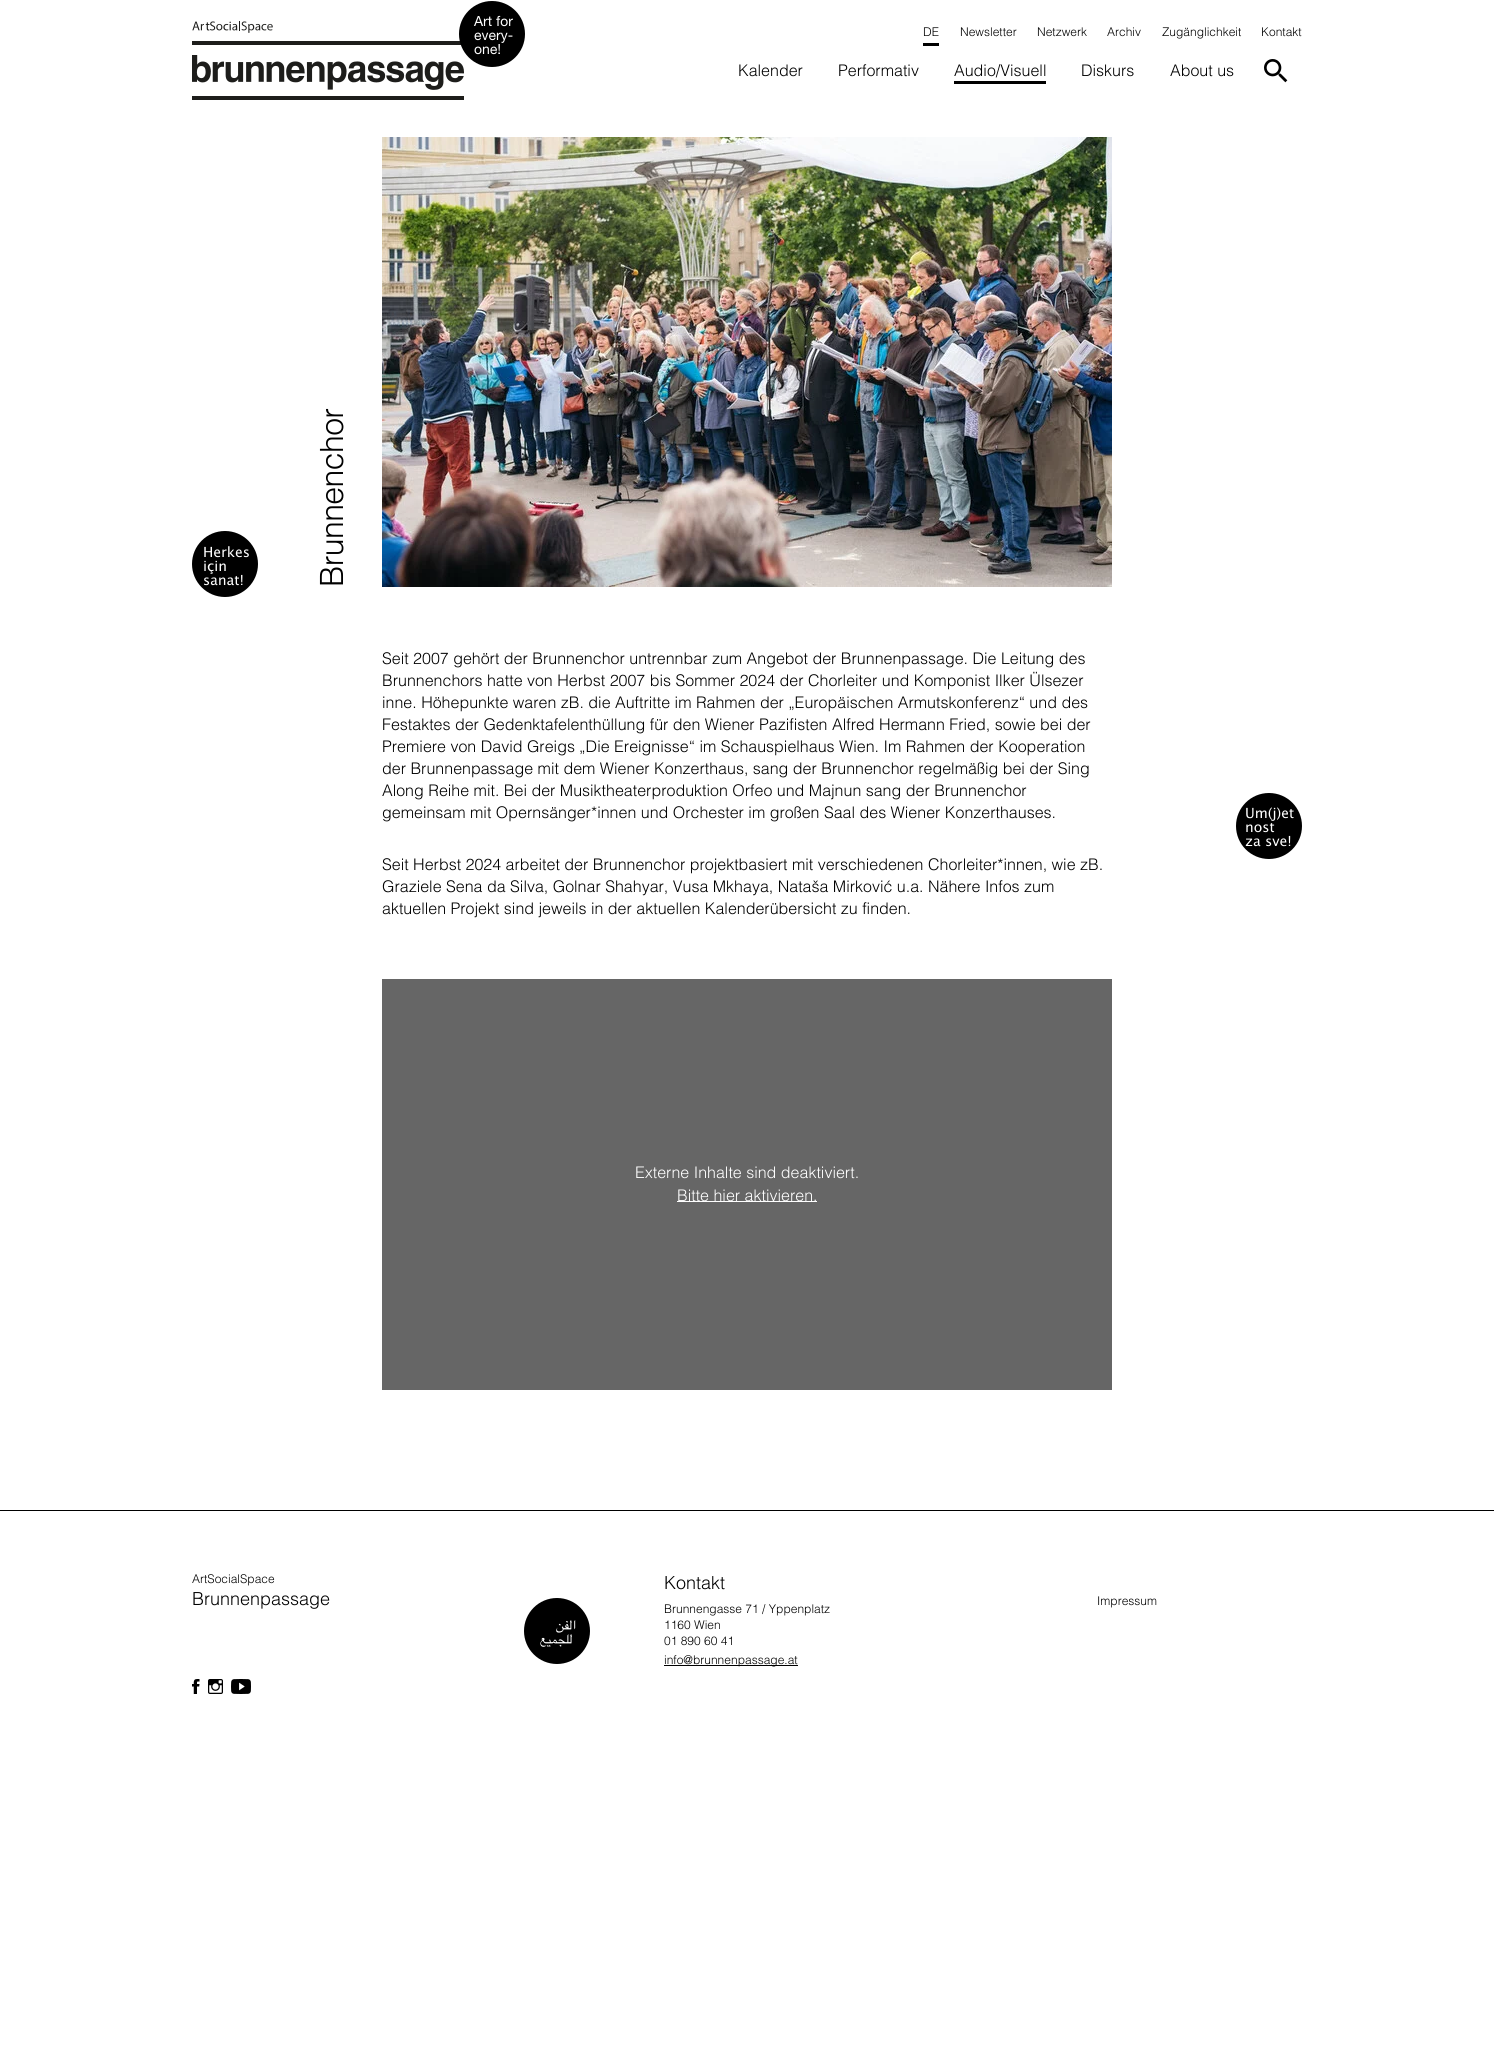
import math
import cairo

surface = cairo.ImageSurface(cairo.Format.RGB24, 1494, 2070)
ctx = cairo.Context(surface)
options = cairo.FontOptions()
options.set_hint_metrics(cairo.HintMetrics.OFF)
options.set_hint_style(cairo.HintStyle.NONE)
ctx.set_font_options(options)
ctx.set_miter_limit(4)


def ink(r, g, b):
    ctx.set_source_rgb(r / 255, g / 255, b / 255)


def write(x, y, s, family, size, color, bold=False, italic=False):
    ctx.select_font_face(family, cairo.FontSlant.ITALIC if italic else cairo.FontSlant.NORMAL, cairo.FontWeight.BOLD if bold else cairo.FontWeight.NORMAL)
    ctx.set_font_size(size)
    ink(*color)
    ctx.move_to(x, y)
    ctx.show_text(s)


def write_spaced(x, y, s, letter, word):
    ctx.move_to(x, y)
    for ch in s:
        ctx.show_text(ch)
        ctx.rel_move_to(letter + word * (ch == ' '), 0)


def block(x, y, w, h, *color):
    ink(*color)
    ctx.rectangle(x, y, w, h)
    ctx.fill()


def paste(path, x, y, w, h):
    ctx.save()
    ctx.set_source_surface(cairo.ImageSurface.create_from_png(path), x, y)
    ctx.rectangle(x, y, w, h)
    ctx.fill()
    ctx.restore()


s1 = dict(family="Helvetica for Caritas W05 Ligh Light", size=12, color=(0, 0, 0))
s2 = dict(family="Helvetica for Caritas W05 Ligh Light", size=16, color=(0, 0, 0))
s3 = dict(family="Helvetica for Caritas W05 Ligh Light", size=16, color=(255, 255, 255))
s4 = dict(family="Helvetica for Caritas W05 Ligh Light", size=18, color=(0, 0, 0))

ink(255, 255, 255)
ctx.paint()
paste("pic1.png", 192, 21, 272, 79)
paste("pic2.png", 459, 1, 66, 66)
paste("pic3.png", 923, 27, 16, 9)
block(923, 43, 16, 3, 0, 0, 0)
write(960, 36, "Newsletter", **s1)
write(1037, 36, "Netzwerk", **s1)
write(1107, 36, "Archiv", **s1)
write(1162, 36, "Zugänglichkeit", **s1)
write(1261, 36, "Kontakt", **s1)
write(738, 76, "Kalender", **s2)
write(838, 76, "Performativ", **s2)
write(954, 76, "Audio/Visuell", **s2)
block(954, 81, 92, 3, 0, 0, 0)
write(1081, 76, "Diskurs", **s2)
write(1170, 76, "About us", **s2)
paste("pic4.png", 1264, 59, 24, 24)
paste("pic5.png", 192, 531, 66, 66)
ctx.set_font_size(32)
ctx.save()
ctx.translate(343, 587)
ctx.rotate(-90 * math.pi / 180)
write_spaced(0, 0, "Brunnenchor", -0.6, 0)
ctx.restore()
paste("pic6.png", 382, 137, 730, 450)
write(382, 664, "Seit 2007 gehört der Brunnenchor untrennbar zum Angebot der Brunnenpassage. Die Leitung des", **s2)
write(382, 686, "Brunnenchors hatte von Herbst 2007 bis Sommer 2024 der Chorleiter und Komponist Ilker Ülsezer", **s2)
write(382, 708, "inne. Höhepunkte waren zB. die Auftritte im Rahmen der „Europäischen Armutskonferenz“ und des", **s2)
write(382, 730, "Festaktes der Gedenktafelenthüllung für den Wiener Pazifisten Alfred Hermann Fried, sowie bei der", **s2)
write(382, 752, "Premiere von David Greigs „Die Ereignisse“ im Schauspielhaus Wien. Im Rahmen der Kooperation", **s2)
write(382, 774, "der Brunnenpassage mit dem Wiener Konzerthaus, sang der Brunnenchor regelmäßig bei der Sing", **s2)
write(382, 796, "Along Reihe mit. Bei der Musiktheaterproduktion Orfeo und Majnun sang der Brunnenchor", **s2)
write(382, 818, "gemeinsam mit Opernsänger*innen und Orchester im großen Saal des Wiener Konzerthauses.", **s2)
write(382, 870, "Seit Herbst 2024 arbeitet der Brunnenchor projektbasiert mit verschiedenen Chorleiter*innen, wie zB.", **s2)
write(382, 892, "Graziele Sena da Silva, Golnar Shahyar, Vusa Mkhaya, Nataša Mirković u.a. Nähere Infos zum", **s2)
write(382, 914, "aktuellen Projekt sind jeweils in der aktuellen Kalenderübersicht zu finden.", **s2)
paste("pic7.png", 1236, 793, 66, 66)
block(382, 979, 730, 411, 102, 102, 102)
write(635, 1178, "Externe Inhalte sind deaktiviert.", **s3)
block(677, 1201, 140, 1, 255, 255, 255)
write(677, 1201, "Bitte hier aktivieren.", **s3)
block(0, 1510, 1494, 1, 0, 0, 0)
write(192, 1583, "ArtSocialSpace", **s1)
write(192, 1605, "Brunnenpassage", **s4)
paste("pic8.png", 524, 1598, 66, 66)
write(664, 1589, "Kontakt", **s4)
write(664, 1613, "Brunnengasse 71 / Yppenplatz", **s1)
write(664, 1629, "1160 Wien", **s1)
write(664, 1645, "01 890 60 41", **s1)
block(664, 1665, 134, 1, 0, 0, 0)
write(664, 1664, "info@brunnenpassage.at", **s1)
write(1097, 1605, "Impressum", **s1)
paste("pic9.png", 192, 1679, 8, 15)
paste("pic10.png", 208, 1679, 15, 15)
paste("pic11.png", 231, 1679, 20, 15)
surface.write_to_png("screenshot.png")
